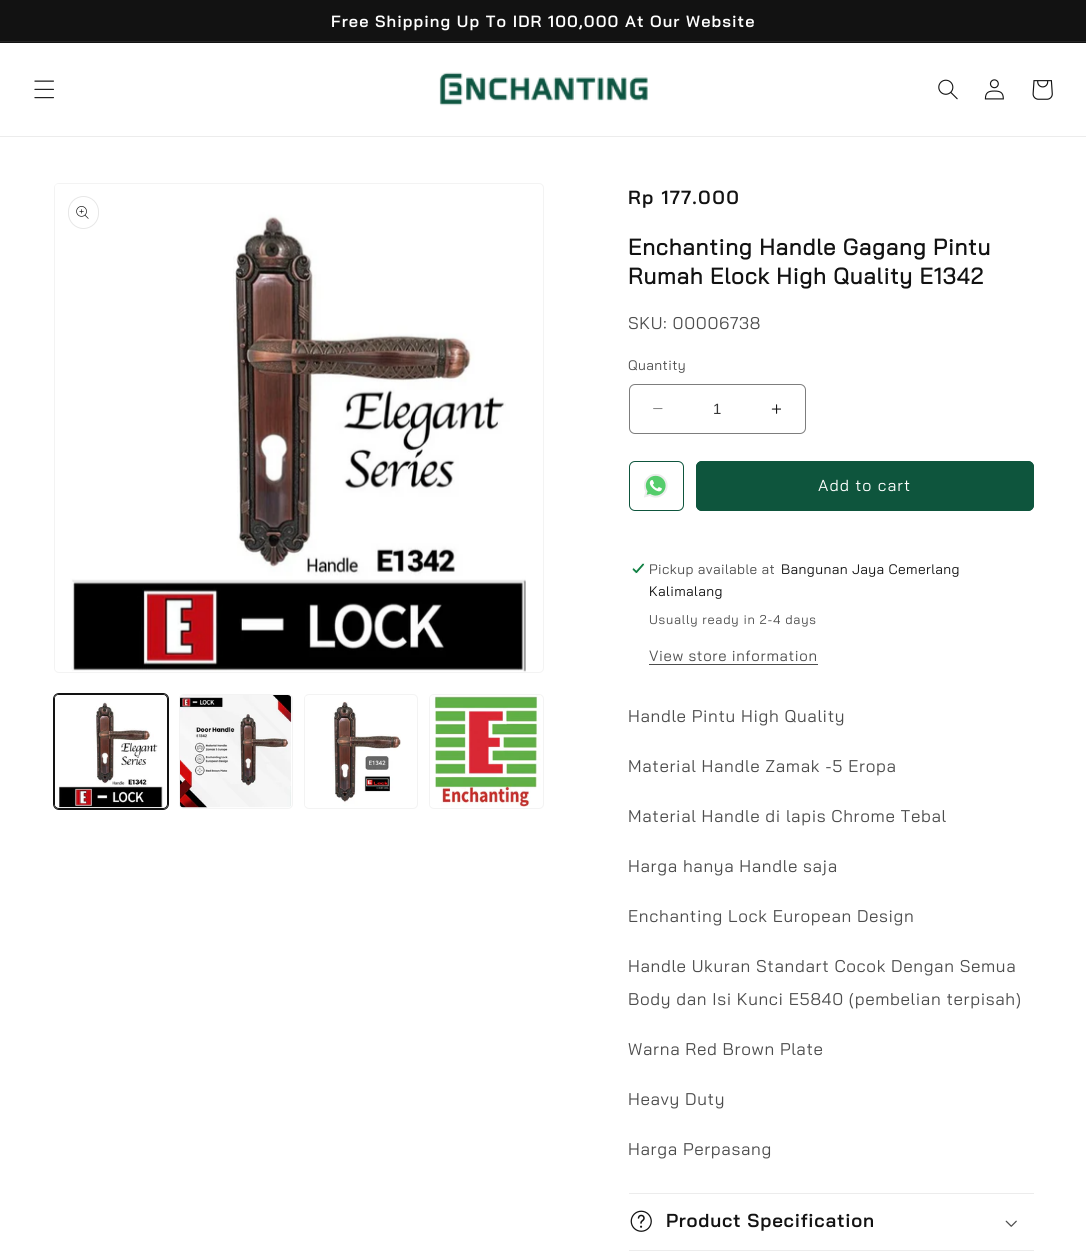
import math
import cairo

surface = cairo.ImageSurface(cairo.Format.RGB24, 1086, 1255)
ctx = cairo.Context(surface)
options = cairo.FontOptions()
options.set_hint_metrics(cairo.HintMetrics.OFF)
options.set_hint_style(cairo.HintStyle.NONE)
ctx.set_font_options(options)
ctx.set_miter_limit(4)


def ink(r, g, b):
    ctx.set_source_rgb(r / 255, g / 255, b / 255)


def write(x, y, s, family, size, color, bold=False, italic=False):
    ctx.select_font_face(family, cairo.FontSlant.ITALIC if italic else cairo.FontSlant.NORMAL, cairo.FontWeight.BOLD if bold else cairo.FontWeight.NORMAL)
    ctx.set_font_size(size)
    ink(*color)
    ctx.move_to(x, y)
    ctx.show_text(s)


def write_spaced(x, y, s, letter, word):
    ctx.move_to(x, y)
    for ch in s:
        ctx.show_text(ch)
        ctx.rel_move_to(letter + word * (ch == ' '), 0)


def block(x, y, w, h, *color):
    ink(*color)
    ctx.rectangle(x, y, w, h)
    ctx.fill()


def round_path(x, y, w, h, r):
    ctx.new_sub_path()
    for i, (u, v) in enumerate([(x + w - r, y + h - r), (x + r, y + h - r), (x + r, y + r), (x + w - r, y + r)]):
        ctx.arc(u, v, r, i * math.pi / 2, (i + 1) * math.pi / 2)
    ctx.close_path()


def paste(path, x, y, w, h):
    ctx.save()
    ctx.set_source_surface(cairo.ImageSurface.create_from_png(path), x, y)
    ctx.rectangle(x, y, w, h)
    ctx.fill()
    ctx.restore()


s1 = dict(family="Liberation Sans", size=14.9, color=(54, 54, 54))

ink(255, 255, 255)
ctx.paint()
block(0, 0, 1086, 43, 18, 18, 18)
block(0, 41, 1086, 1, 37, 37, 37)
ctx.select_font_face("Bai Jamjuree SemiBold")
ctx.set_font_size(16.25)
ink(255, 255, 255)
write_spaced(331, 27, "Free Shipping Up To IDR 100,000 At Our Website", 1.05, 0)
block(0, 136, 1086, 1, 236, 236, 236)
paste("pic1.png", 34, 80, 20, 19)
paste("pic2.png", 439, 72, 209, 34)
paste("pic3.png", 938, 79, 20, 21)
paste("pic4.png", 984, 79, 20, 21)
paste("pic5.png", 1032, 80, 21, 20)
round_path(54.5, 183.5, 489, 489, 4.5)
ink(243, 243, 243)
ctx.set_line_width(1)
ctx.stroke()
paste("pic6.png", 55, 184, 471, 488)
round_path(68.5, 196.5, 30, 32, 15)
ink(231, 231, 231)
ctx.stroke()
paste("pic7.png", 76, 206, 13, 13)
round_path(53.5, 693.5, 115, 116, 5.5)
ink(18, 18, 18)
ctx.stroke()
round_path(54.5, 694.5, 113, 114, 4.5)
ctx.stroke()
paste("pic8.png", 55, 695, 111, 113)
round_path(179.5, 694.5, 113, 114, 4.5)
ink(243, 243, 243)
ctx.stroke()
paste("pic9.png", 180, 695, 112, 113)
round_path(304.5, 694.5, 113, 114, 4.5)
ctx.stroke()
paste("pic10.png", 305, 696, 96, 110)
round_path(429.5, 694.5, 114, 114, 4.5)
ctx.stroke()
paste("pic11.png", 430, 695, 111, 112)
ctx.set_font_size(19)
ink(18, 18, 18)
write_spaced(628, 204, "Rp 177.000", 1.4, 0)
ctx.select_font_face("Bai Jamjuree", cairo.FontSlant.NORMAL, cairo.FontWeight.BOLD)
ctx.set_font_size(22.5)
write_spaced(628, 255, "Enchanting Handle Gagang Pintu", 0.75, 0)
write_spaced(628, 284, "Rumah Elock High Quality E1342", 0.75, 0)
ctx.select_font_face("Bai Jamjuree")
ctx.set_font_size(17)
ink(77, 77, 77)
write_spaced(628, 329, "SKU: 00006738", 0.65, 0)
ctx.set_font_size(13.75)
write_spaced(628, 370, "Quantity", 0.4, 0)
paste("pic12.png", 653, 408, 10, 2)
paste("pic13.png", 771, 404, 10, 10)
round_path(629.5, 384.5, 176, 49, 5.5)
ink(125, 125, 125)
ctx.stroke()
write(713, 414, "1", **s1)
paste("pic14.png", 644, 474, 24, 24)
round_path(629.5, 461.5, 54, 49, 5.5)
ink(14, 85, 61)
ctx.stroke()
round_path(696, 461, 338, 50, 6)
ctx.fill()
round_path(696.5, 461.5, 337, 49, 5.5)
ctx.stroke()
ctx.select_font_face("Bai Jamjuree")
ctx.set_font_size(16)
ink(255, 255, 255)
write_spaced(818, 491, "Add to cart", 1.05, 0)
paste("pic15.png", 632, 563, 13, 11)
ctx.set_font_size(13.75)
ink(77, 77, 77)
write_spaced(649, 574, "Pickup available at", 0.4, 0)
ink(18, 18, 18)
write_spaced(781, 574, "Bangunan Jaya Cemerlang", 0.4, 0)
write_spaced(649, 596, "Kalimalang", 0.4, 0)
ctx.set_font_size(12.75)
ink(77, 77, 77)
write_spaced(649, 624, "Usually ready in 2-4 days", 0.75, 0)
ctx.set_font_size(14.9)
write_spaced(649, 661, "View store information", 0.65, 0)
block(649, 664, 169, 1, 77, 77, 77)
ctx.set_font_size(17)
write_spaced(628, 722, "Handle Pintu High Quality", 0.65, 0)
write_spaced(628, 772, "Material Handle Zamak -5 Eropa", 0.65, 0)
write_spaced(628, 822, "Material Handle di lapis Chrome Tebal", 0.65, 0)
write_spaced(628, 872, "Harga hanya Handle saja", 0.65, 0)
write_spaced(628, 922, "Enchanting Lock European Design", 0.65, 0)
write_spaced(628, 972, "Handle Ukuran Standart Cocok Dengan Semua", 0.65, 0)
write_spaced(628, 1005, "Body dan Isi Kunci E5840 (pembelian terpisah)", 0.65, 0)
write_spaced(628, 1055, "Warna Red Brown Plate", 0.65, 0)
write_spaced(628, 1105, "Heavy Duty", 0.65, 0)
write_spaced(628, 1155, "Harga Perpasang", 0.65, 0)
block(629, 1193, 405, 1, 236, 236, 236)
block(629, 1250, 405, 1, 236, 236, 236)
paste("pic16.png", 630, 1210, 22, 22)
ctx.select_font_face("Bai Jamjuree SemiBold")
ctx.set_font_size(18.75)
ink(18, 18, 18)
write_spaced(666, 1227, "Product Specification", 0.75, 0)
paste("pic17.png", 1005, 1220, 12, 7)
surface.write_to_png("screenshot.png")
